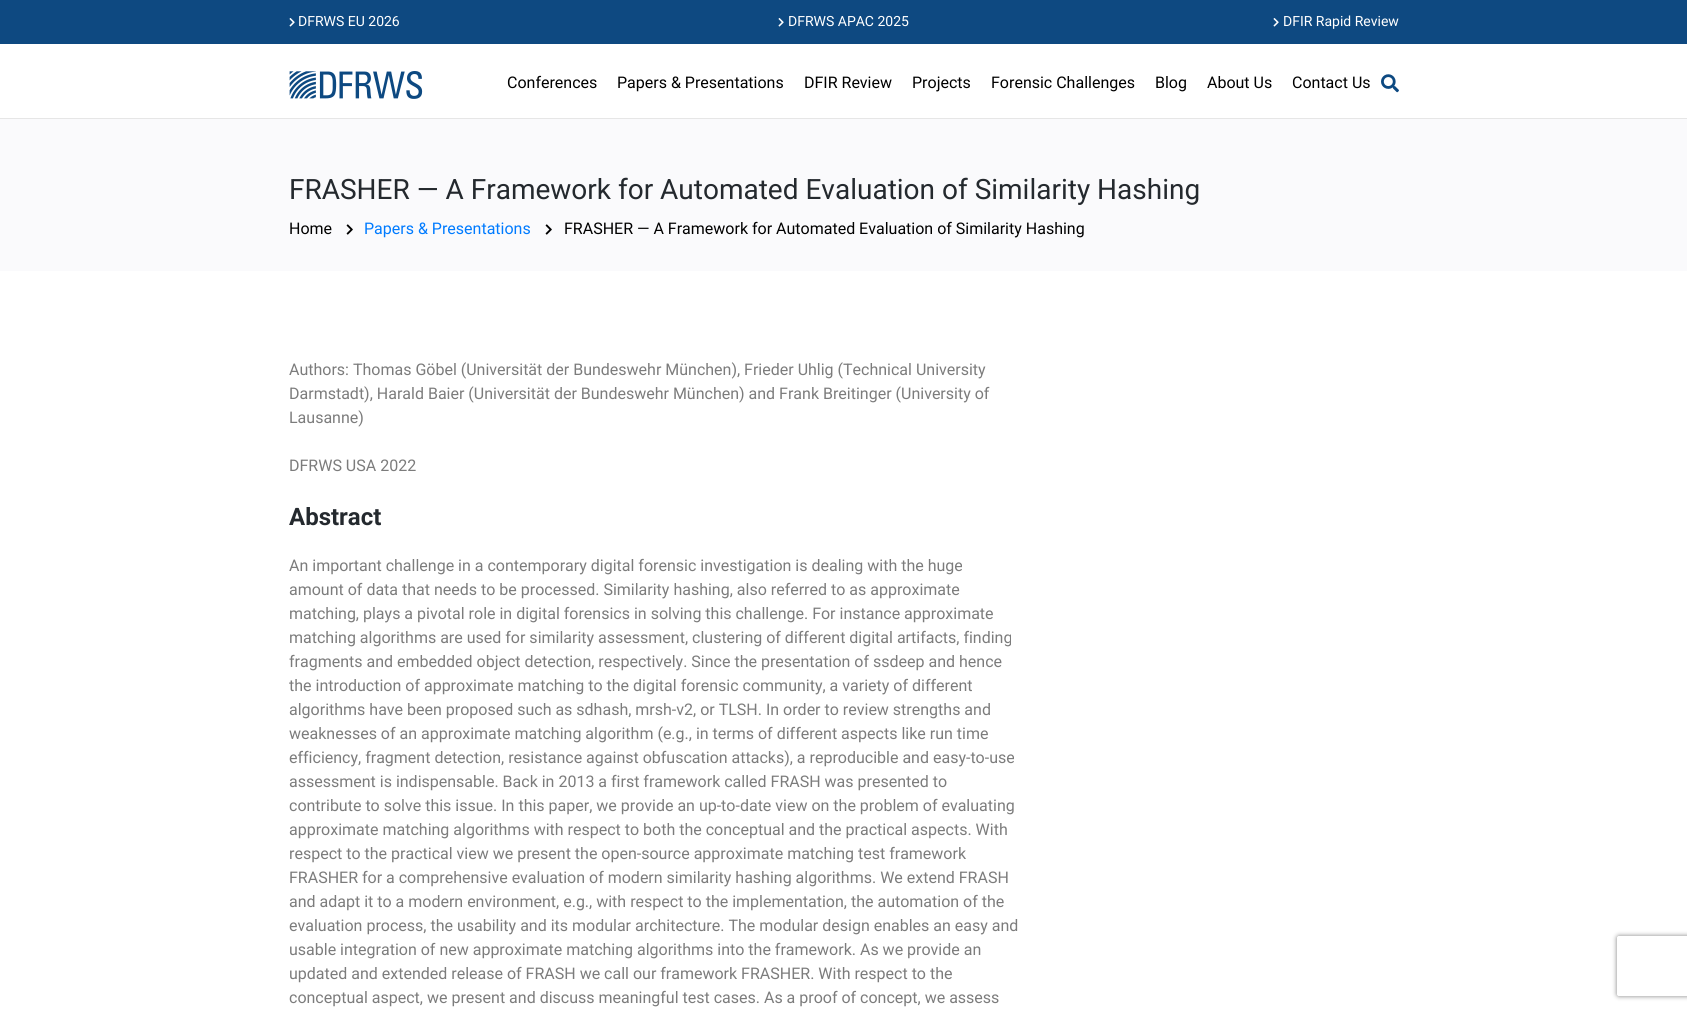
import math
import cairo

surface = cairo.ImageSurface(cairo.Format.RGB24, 1687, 1010)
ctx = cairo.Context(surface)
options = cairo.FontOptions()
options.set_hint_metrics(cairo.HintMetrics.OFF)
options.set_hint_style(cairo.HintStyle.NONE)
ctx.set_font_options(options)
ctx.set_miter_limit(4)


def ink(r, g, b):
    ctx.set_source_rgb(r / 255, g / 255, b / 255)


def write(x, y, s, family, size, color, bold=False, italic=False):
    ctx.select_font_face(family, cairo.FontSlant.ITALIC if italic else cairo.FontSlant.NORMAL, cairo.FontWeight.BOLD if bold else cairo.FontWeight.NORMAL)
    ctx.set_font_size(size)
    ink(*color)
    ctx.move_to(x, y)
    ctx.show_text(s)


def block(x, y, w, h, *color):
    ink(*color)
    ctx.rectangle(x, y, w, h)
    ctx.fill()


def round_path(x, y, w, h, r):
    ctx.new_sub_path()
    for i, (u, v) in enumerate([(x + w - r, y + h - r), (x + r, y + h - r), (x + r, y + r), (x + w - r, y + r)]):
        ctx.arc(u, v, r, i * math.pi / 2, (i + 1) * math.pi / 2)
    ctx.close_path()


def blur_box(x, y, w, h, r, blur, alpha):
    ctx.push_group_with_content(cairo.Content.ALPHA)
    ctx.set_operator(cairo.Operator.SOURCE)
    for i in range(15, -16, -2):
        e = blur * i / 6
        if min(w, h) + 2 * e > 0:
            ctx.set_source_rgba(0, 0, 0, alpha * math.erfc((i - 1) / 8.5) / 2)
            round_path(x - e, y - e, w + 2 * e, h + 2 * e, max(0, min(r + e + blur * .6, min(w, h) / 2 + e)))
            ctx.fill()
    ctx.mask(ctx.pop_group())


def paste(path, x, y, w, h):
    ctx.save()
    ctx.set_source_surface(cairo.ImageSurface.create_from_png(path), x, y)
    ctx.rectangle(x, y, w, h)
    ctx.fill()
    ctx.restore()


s1 = dict(family="Roboto", size=14, color=(255, 255, 255))
s2 = dict(family="Roboto", size=16, color=(0, 0, 0))
s3 = dict(family="Roboto", size=28, color=(36, 41, 46))
s4 = dict(family="Roboto", size=16, color=(0, 123, 255))
s5 = dict(family="Roboto", size=16, color=(124, 124, 124))
s6 = dict(family="Roboto", size=24, color=(36, 41, 46), bold=True)

ink(255, 255, 255)
ctx.paint()
block(0, 0, 1687, 44, 14, 73, 129)
paste("pic1.png", 289, 18, 6, 9)
write(298, 26, "DFRWS EU 2026", **s1)
paste("pic1.png", 778, 18, 6, 9)
write(788, 26, "DFRWS APAC 2025", **s1)
paste("pic1.png", 1273, 18, 6, 9)
write(1283, 26, "DFIR Rapid Review", **s1)
block(0, 118, 1687, 1, 230, 230, 230)
paste("pic2.png", 289, 71, 134, 28)
write(507, 88, "Conferences", **s2)
write(617, 88, "Papers & Presentations", **s2)
write(804, 88, "DFIR Review", **s2)
write(912, 88, "Projects", **s2)
write(991, 88, "Forensic Challenges", **s2)
write(1155, 88, "Blog", **s2)
write(1207, 88, "About Us", **s2)
write(1292, 88, "Contact Us", **s2)
paste("pic3.png", 1381, 74, 18, 19)
block(0, 119, 1687, 152, 250, 250, 252)
write(289, 199, "FRASHER — A Framework for Automated Evaluation of Similarity Hashing", **s3)
write(289, 234, "Home", **s2)
paste("pic4.png", 346, 224, 7, 11)
write(364, 234, "Papers & Presentations", **s4)
paste("pic4.png", 545, 224, 7, 11)
write(564, 234, "FRASHER — A Framework for Automated Evaluation of Similarity Hashing", **s2)
write(289, 375, "Authors: Thomas Göbel (Universität der Bundeswehr München), Frieder Uhlig (Technical University", **s5)
write(289, 399, "Darmstadt), Harald Baier (Universität der Bundeswehr München) and Frank Breitinger (University of", **s5)
write(289, 423, "Lausanne)", **s5)
write(289, 471, "DFRWS USA 2022", **s5)
write(289, 525, "Abstract", **s6)
write(289, 571, "An important challenge in a contemporary digital forensic investigation is dealing with the huge", **s5)
write(289, 595, "amount of data that needs to be processed. Similarity hashing, also referred to as approximate", **s5)
write(289, 619, "matching, plays a pivotal role in digital forensics in solving this challenge. For instance approximate", **s5)
write(289, 643, "matching algorithms are used for similarity assessment, clustering of different digital artifacts, finding", **s5)
write(289, 667, "fragments and embedded object detection, respectively. Since the presentation of ssdeep and hence", **s5)
write(289, 691, "the introduction of approximate matching to the digital forensic community, a variety of different", **s5)
write(289, 715, "algorithms have been proposed such as sdhash, mrsh-v2, or TLSH. In order to review strengths and", **s5)
write(289, 739, "weaknesses of an approximate matching algorithm (e.g., in terms of different aspects like run time", **s5)
write(289, 763, "efficiency, fragment detection, resistance against obfuscation attacks), a reproducible and easy-to-use", **s5)
write(289, 787, "assessment is indispensable. Back in 2013 a first framework called FRASH was presented to", **s5)
write(289, 811, "contribute to solve this issue. In this paper, we provide an up-to-date view on the problem of evaluating", **s5)
write(289, 835, "approximate matching algorithms with respect to both the conceptual and the practical aspects. With", **s5)
write(289, 859, "respect to the practical view we present the open-source approximate matching test framework", **s5)
write(289, 883, "FRASHER for a comprehensive evaluation of modern similarity hashing algorithms. We extend FRASH", **s5)
write(289, 907, "and adapt it to a modern environment, e.g., with respect to the implementation, the automation of the", **s5)
write(289, 931, "evaluation process, the usability and its modular architecture. The modular design enables an easy and", **s5)
write(289, 955, "usable integration of new approximate matching algorithms into the framework. As we provide an", **s5)
write(289, 979, "updated and extended release of FRASH we call our framework FRASHER. With respect to the", **s5)
write(289, 1003, "conceptual aspect, we present and discuss meaningful test cases. As a proof of concept, we assess", **s5)
ctx.save()
ctx.set_fill_rule(cairo.FillRule.EVEN_ODD)
ctx.new_path()
ctx.move_to(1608, 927)
ctx.line_to(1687, 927)
ctx.line_to(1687, 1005)
ctx.line_to(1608, 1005)
ctx.close_path()
ctx.move_to(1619, 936)
ctx.line_to(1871, 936)
ctx.curve_to(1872, 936, 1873, 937, 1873, 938)
ctx.line_to(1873, 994)
ctx.curve_to(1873, 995, 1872, 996, 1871, 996)
ctx.line_to(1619, 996)
ctx.curve_to(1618, 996, 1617, 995, 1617, 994)
ctx.line_to(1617, 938)
ctx.curve_to(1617, 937, 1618, 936, 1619, 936)
ctx.close_path()
ctx.clip()
ink(128, 128, 128)
blur_box(1617, 936, 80, 60, 2, 2.5, 1)
ctx.restore()
surface.write_to_png("screenshot.png")
